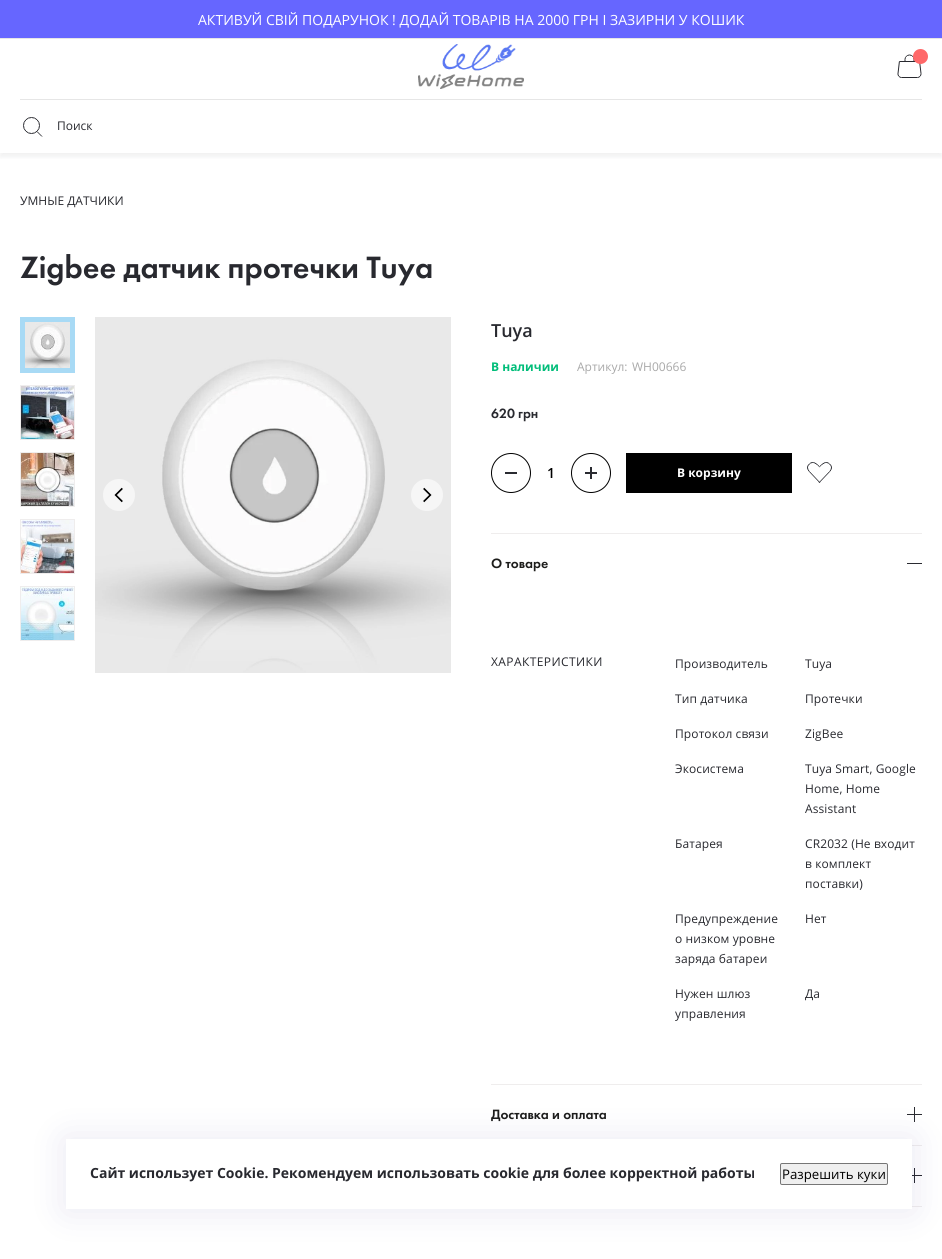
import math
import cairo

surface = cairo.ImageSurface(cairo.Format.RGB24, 942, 1259)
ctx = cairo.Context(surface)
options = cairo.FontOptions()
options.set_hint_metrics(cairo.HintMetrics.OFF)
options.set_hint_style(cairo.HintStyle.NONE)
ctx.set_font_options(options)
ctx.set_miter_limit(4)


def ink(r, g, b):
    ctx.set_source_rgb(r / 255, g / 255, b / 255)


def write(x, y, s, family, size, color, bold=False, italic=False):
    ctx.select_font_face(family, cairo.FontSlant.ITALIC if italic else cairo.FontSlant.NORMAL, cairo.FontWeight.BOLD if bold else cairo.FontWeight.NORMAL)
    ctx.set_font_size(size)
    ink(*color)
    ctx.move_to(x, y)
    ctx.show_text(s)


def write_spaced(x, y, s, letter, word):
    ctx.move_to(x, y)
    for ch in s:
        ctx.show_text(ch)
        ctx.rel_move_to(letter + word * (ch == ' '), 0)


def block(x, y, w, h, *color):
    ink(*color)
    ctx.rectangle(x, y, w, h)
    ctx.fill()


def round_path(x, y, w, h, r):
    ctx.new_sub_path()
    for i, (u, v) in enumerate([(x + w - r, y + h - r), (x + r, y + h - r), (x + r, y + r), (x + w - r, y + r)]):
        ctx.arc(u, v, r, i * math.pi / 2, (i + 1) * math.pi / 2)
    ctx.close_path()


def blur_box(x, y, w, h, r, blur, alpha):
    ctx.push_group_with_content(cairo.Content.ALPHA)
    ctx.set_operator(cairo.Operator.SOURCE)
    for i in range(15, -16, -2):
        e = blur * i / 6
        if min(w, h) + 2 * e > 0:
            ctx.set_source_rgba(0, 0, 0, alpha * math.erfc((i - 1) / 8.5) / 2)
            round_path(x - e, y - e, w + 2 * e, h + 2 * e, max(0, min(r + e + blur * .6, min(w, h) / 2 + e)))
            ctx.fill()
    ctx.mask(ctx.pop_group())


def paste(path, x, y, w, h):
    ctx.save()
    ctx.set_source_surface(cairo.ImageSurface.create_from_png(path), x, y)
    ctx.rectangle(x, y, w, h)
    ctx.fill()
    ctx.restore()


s1 = dict(family="Open Sans", size=14, color=(255, 255, 255))
s2 = dict(family="Open Sans", size=12, color=(40, 41, 47))
s3 = dict(family="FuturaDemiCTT", size=32, color=(40, 41, 47))
s4 = dict(family="Open Sans SemiBold", size=18, color=(40, 41, 47))
s5 = dict(family="Open Sans", size=12, color=(0, 189, 121), bold=True)
s6 = dict(family="Open Sans", size=12, color=(169, 169, 169))
s7 = dict(family="FuturaDemiCTT", size=14, color=(40, 41, 47))
s8 = dict(family="Open Sans SemiBold", size=14, color=(0, 0, 0))
s9 = dict(family="Open Sans", size=12, color=(255, 255, 255), bold=True)
s10 = dict(family="FuturaDemiCTT", size=14, color=(29, 29, 27))
s11 = dict(family="Open Sans", size=14, color=(40, 41, 47), bold=True)
s12 = dict(family="Open Sans", size=13.25, color=(0, 0, 0))

ink(255, 255, 255)
ctx.paint()
block(914, 1168, 1, 15, 42, 43, 49)
block(914, 1107, 1, 15, 42, 43, 49)
block(590, 467, 2, 12, 42, 43, 49)
ctx.save()
ctx.rectangle(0, 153, 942, 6)
ctx.clip()
ink(109, 111, 116)
blur_box(0, 42, 942, 115, 0, 2.5, 0.1)
ctx.restore()
block(0, 0, 942, 38, 102, 102, 255)
write(198, 25, "АКТИВУЙ СВІЙ ПОДАРУНОК ! ДОДАЙ ТОВАРІВ НА 2000 ГРН І ЗАЗИРНИ У КОШИК", **s1)
block(0, 38, 942, 1, 230, 230, 230)
paste("pic1.png", 418, 44, 106, 45)
paste("pic2.png", 897, 54, 25, 24)
ink(255, 104, 105)
ctx.arc(920.5, 56.5, 7.5, 0, 2 * math.pi)
ctx.fill()
block(20, 99, 902, 1, 230, 230, 230)
paste("pic3.png", 23, 117, 20, 20)
write(57, 130, "Поиск", **s2)
write(20, 205, "УМНЫЕ ДАТЧИКИ", **s2)
write(20, 278, "Zigbee датчик протечки Tuya", **s3)
paste("pic4.png", 25, 322, 45, 46)
ctx.rectangle(22.5, 319.5, 50, 51)
ink(168, 218, 245)
ctx.set_line_width(5)
ctx.stroke()
paste("pic5.png", 21, 386, 53, 53)
ctx.rectangle(20.5, 385.5, 54, 54)
ink(239, 237, 237)
ctx.set_line_width(1)
ctx.stroke()
paste("pic6.png", 21, 453, 53, 53)
ctx.rectangle(20.5, 452.5, 54, 54)
ctx.stroke()
paste("pic7.png", 21, 520, 53, 53)
ctx.rectangle(20.5, 519.5, 54, 54)
ctx.stroke()
paste("pic8.png", 21, 587, 53, 53)
ctx.rectangle(20.5, 586.5, 54, 54)
ctx.stroke()
paste("pic9.png", 95, 317, 356, 356)
ink(246, 246, 246)
ctx.arc(119, 495, 16, 0, 2 * math.pi)
ctx.fill()
paste("pic10.png", 114, 487, 9, 16)
ctx.arc(427, 495, 16, 0, 2 * math.pi)
ctx.fill()
paste("pic11.png", 423, 487, 9, 16)
write(491, 337, "Tuya", **s4)
write(491, 371, "В наличии", **s5)
write(577, 371, "Артикул:", **s6)
write(632, 371, "WH00666", **s6)
write(491, 418, "620 грн", **s7)
ctx.new_path()
ctx.arc(511, 473, 19.5, 0, 2 * math.pi)
ink(0, 0, 0)
ctx.stroke()
block(505, 472, 12, 2, 42, 43, 49)
write(547, 478, "1", **s8)
ctx.new_path()
ctx.arc(591, 473, 19.5, 0, 2 * math.pi)
ctx.stroke()
block(585, 472, 12, 2, 42, 43, 49)
block(626, 453, 166, 40, 0, 0, 0)
write(677, 477, "В корзину", **s9)
paste("pic12.png", 807, 462, 25, 21)
block(491, 533, 431, 1, 239, 237, 237)
write(491, 568, "О товаре", **s10)
block(907, 563, 15, 1, 42, 43, 49)
ctx.select_font_face("Open Sans")
ctx.set_font_size(12)
ink(40, 41, 47)
write_spaced(491, 666, "ХАРАКТЕРИСТИКИ", 0.4, 0)
write_spaced(675, 668, "Производитель", 0.1, 0)
write_spaced(805, 668, "Tuya", 0.1, 0)
write_spaced(675, 703, "Тип датчика", 0.1, 0)
write_spaced(805, 703, "Протечки", 0.1, 0)
write_spaced(675, 738, "Протокол связи", 0.1, 0)
write_spaced(805, 738, "ZigBee", 0.1, 0)
write_spaced(675, 773, "Экосистема", 0.1, 0)
write_spaced(805, 773, "Tuya Smart, Google", 0.1, 0)
write_spaced(805, 793, "Home, Home", 0.1, 0)
write_spaced(805, 813, "Assistant", 0.1, 0)
write_spaced(675, 848, "Батарея", 0.1, 0)
write_spaced(805, 848, "CR2032 (Не входит", 0.1, 0)
write_spaced(805, 868, "в комплект", 0.1, 0)
write_spaced(805, 888, "поставки)", 0.1, 0)
write_spaced(675, 923, "Предупреждение", 0.1, 0)
write_spaced(675, 943, "о низком уровне", 0.1, 0)
write_spaced(675, 963, "заряда батареи", 0.1, 0)
write_spaced(805, 923, "Нет", 0.1, 0)
write_spaced(675, 998, "Нужен шлюз", 0.1, 0)
write_spaced(675, 1018, "управления", 0.1, 0)
write_spaced(805, 998, "Да", 0.1, 0)
block(491, 1084, 431, 1, 239, 237, 237)
write(491, 1119, "Доставка и оплата", **s10)
block(907, 1114, 15, 1, 42, 43, 49)
block(912, 1145, 10, 1, 239, 237, 237)
block(912, 1206, 10, 1, 239, 237, 237)
block(907, 1175, 15, 1, 42, 43, 49)
ink(19, 12, 121)
blur_box(66, 1140, 846, 70, 0, 17.5, 0.1)
block(66, 1139, 846, 70, 255, 255, 255)
write(90, 1178, "Сайт использует Cookie. Рекомендуем использовать cookie для более корректной работы", **s11)
ink(239, 239, 239)
round_path(780.5, 1163.5, 107, 21, 1.5)
ctx.fill_preserve()
ink(118, 118, 118)
ctx.stroke()
write(782, 1179, "Разрешить куки", **s12)
surface.write_to_png("screenshot.png")
